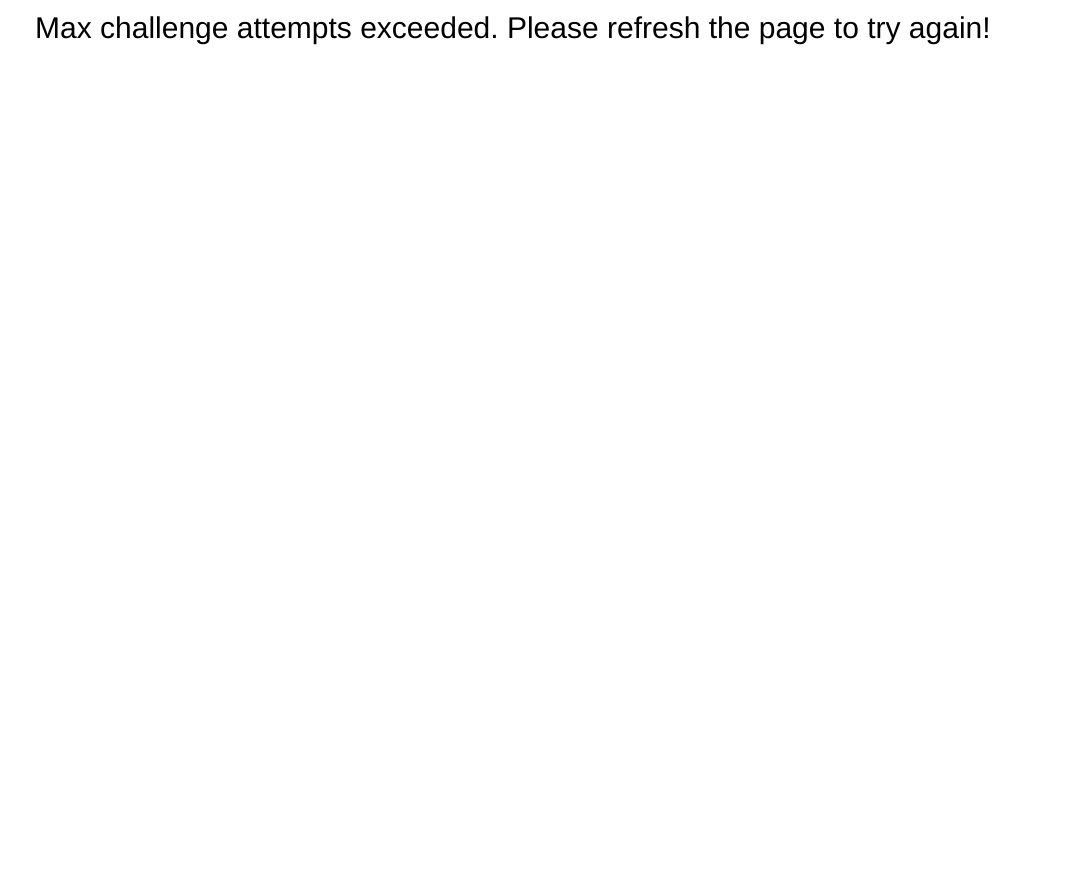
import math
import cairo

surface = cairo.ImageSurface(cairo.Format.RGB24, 1082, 887)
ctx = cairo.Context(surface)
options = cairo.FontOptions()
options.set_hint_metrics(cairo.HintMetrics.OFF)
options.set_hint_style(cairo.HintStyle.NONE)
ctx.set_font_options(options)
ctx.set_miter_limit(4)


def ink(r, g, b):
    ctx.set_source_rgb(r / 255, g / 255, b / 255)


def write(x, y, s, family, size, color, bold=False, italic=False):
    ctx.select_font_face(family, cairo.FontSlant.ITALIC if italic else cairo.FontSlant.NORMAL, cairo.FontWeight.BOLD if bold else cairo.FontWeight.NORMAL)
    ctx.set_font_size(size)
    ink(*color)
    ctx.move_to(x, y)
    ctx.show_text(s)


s1 = dict(family="Liberation Sans", size=30, color=(0, 0, 0))

ink(255, 255, 255)
ctx.paint()
write(35, 38, "Max challenge attempts exceeded. Please refresh the page to try again!", **s1)
surface.write_to_png("screenshot.png")
